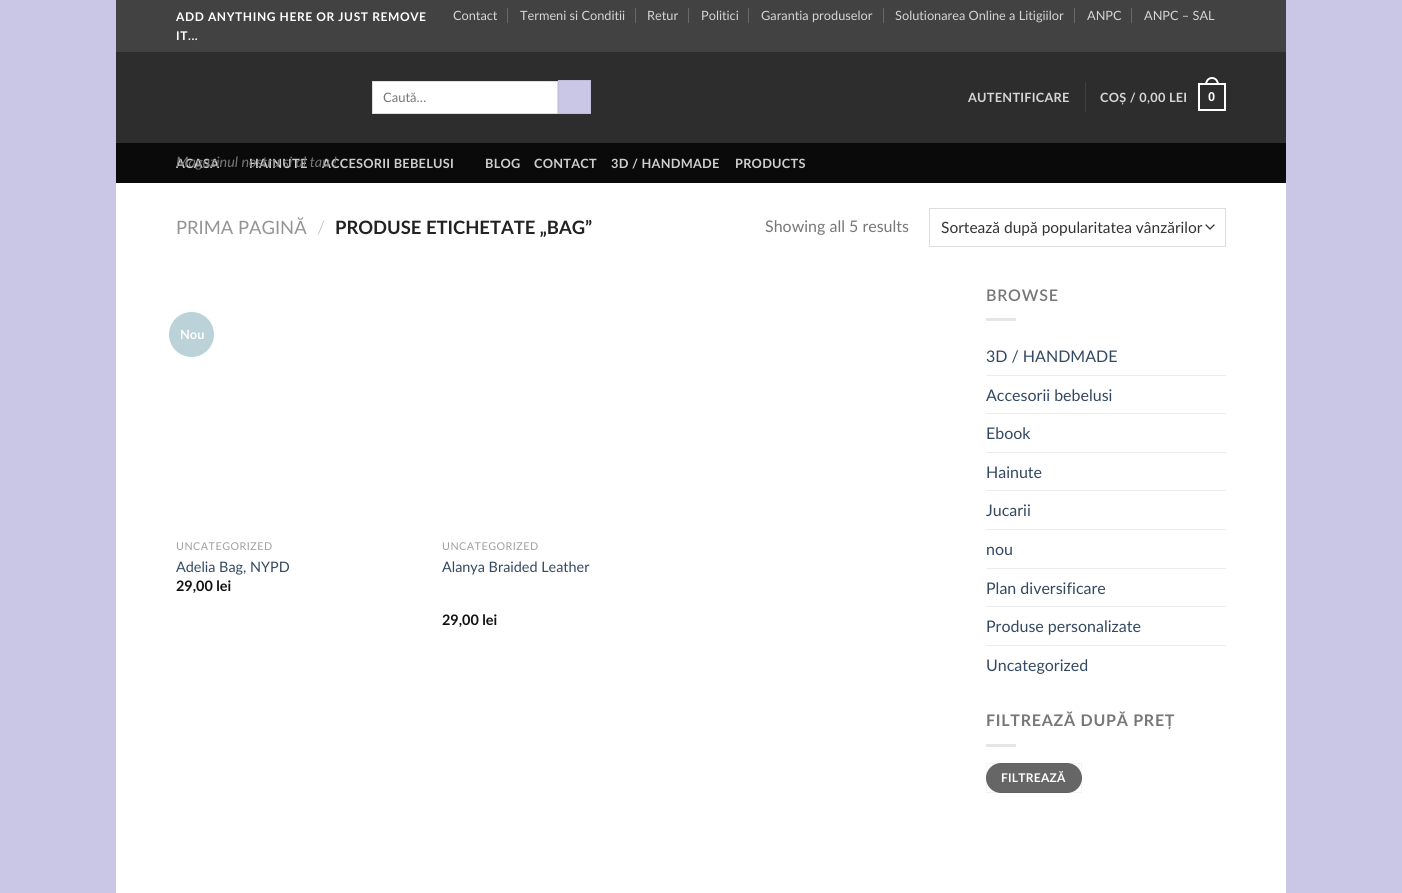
import math
import cairo

surface = cairo.ImageSurface(cairo.Format.RGB24, 1402, 893)
ctx = cairo.Context(surface)
options = cairo.FontOptions()
options.set_hint_metrics(cairo.HintMetrics.OFF)
options.set_hint_style(cairo.HintStyle.NONE)
ctx.set_font_options(options)
ctx.set_miter_limit(4)


def ink(r, g, b):
    ctx.set_source_rgb(r / 255, g / 255, b / 255)


def write(x, y, s, family, size, color, bold=False, italic=False):
    ctx.select_font_face(family, cairo.FontSlant.ITALIC if italic else cairo.FontSlant.NORMAL, cairo.FontWeight.BOLD if bold else cairo.FontWeight.NORMAL)
    ctx.set_font_size(size)
    ink(*color)
    ctx.move_to(x, y)
    ctx.show_text(s)


def write_spaced(x, y, s, letter, word):
    ctx.move_to(x, y)
    for ch in s:
        ctx.show_text(ch)
        ctx.rel_move_to(letter + word * (ch == ' '), 0)


def block(x, y, w, h, *color):
    ink(*color)
    ctx.rectangle(x, y, w, h)
    ctx.fill()


def round_path(x, y, w, h, r):
    ctx.new_sub_path()
    for i, (u, v) in enumerate([(x + w - r, y + h - r), (x + r, y + h - r), (x + r, y + r), (x + w - r, y + r)]):
        ctx.arc(u, v, r, i * math.pi / 2, (i + 1) * math.pi / 2)
    ctx.close_path()


s1 = dict(family="Lato", size=12.75, color=(213, 213, 213))
s2 = dict(family="Lato", size=13, color=(119, 119, 119))
s3 = dict(family="Lato", size=14.4, color=(119, 119, 119), italic=True)
s4 = dict(family="Lato", size=18.4, color=(148, 148, 148))
s5 = dict(family="Lato Light", size=18.4, color=(178, 178, 178))
s6 = dict(family="Lato", size=18.4, color=(34, 34, 34), bold=True)
s7 = dict(family="Lato", size=16, color=(119, 119, 119))
s8 = dict(family="Lato", size=15.5, color=(51, 51, 51))
s9 = dict(family="Lato", size=12.75, color=(255, 255, 255), bold=True)
s10 = dict(family="Lato", size=14.4, color=(51, 72, 98))
s11 = dict(family="Lato", size=14.4, color=(17, 17, 17), bold=True)
s12 = dict(family="Lato", size=16, color=(51, 72, 98))

ink(202, 198, 230)
ctx.paint()
block(116, 183, 1170, 710, 255, 255, 255)
block(116, 0, 1170, 52, 66, 66, 66)
ctx.select_font_face("Lato", cairo.FontSlant.NORMAL, cairo.FontWeight.BOLD)
ctx.set_font_size(12)
ink(255, 255, 255)
write_spaced(176, 21, "ADD ANYTHING HERE OR JUST REMOVE", 0.6, 0)
write_spaced(176, 40, "IT...", 0.6, 0)
write(453, 20, "Contact", **s1)
block(507, 8, 1, 15, 104, 104, 104)
write(520, 20, "Termeni si Conditii", **s1)
block(635, 8, 1, 15, 104, 104, 104)
write(647, 20, "Retur", **s1)
block(688, 8, 1, 15, 104, 104, 104)
write(701, 20, "Politici", **s1)
block(748, 8, 1, 15, 104, 104, 104)
write(761, 20, "Garantia produselor", **s1)
block(883, 8, 1, 15, 104, 104, 104)
write(895, 20, "Solutionarea Online a Litigiilor", **s1)
block(1074, 8, 1, 15, 104, 104, 104)
write(1087, 20, "ANPC", **s1)
block(1131, 8, 1, 15, 104, 104, 104)
write(1144, 20, "ANPC – SAL", **s1)
block(116, 52, 1170, 91, 45, 45, 45)
ink(255, 255, 255)
ctx.rectangle(372.5, 81.5, 185, 32)
ctx.fill_preserve()
ink(221, 221, 221)
ctx.set_line_width(1)
ctx.stroke()
write(383, 102, "Caută…", **s2)
ink(202, 198, 230)
ctx.rectangle(558.5, 80.5, 32, 33)
ctx.fill_preserve()
ink(192, 188, 219)
ctx.stroke()
ctx.select_font_face("Lato", cairo.FontSlant.NORMAL, cairo.FontWeight.BOLD)
ctx.set_font_size(12.75)
ink(213, 213, 213)
write_spaced(968, 102, "AUTENTIFICARE", 0.25, 0)
block(1085, 82, 1, 30, 66, 66, 66)
ink(213, 213, 213)
write_spaced(1100, 102, "COȘ / 0,00 LEI", 0.25, 0)
ctx.rectangle(1199, 84, 26, 26)
ink(255, 255, 255)
ctx.set_line_width(2)
ctx.stroke()
ctx.set_fill_rule(cairo.FillRule.EVEN_ODD)
ctx.new_path()
ctx.move_to(1212, 77)
ctx.curve_to(1216.5, 77, 1219, 81, 1219, 85)
ctx.line_to(1205, 85)
ctx.curve_to(1205, 81, 1207.5, 77, 1212, 77)
ctx.close_path()
ctx.move_to(1212, 79)
ctx.curve_to(1215.5, 79, 1217, 82, 1217, 85)
ctx.line_to(1207, 85)
ctx.curve_to(1207, 82, 1208.5, 79, 1212, 79)
ctx.close_path()
ctx.fill()
ctx.select_font_face("Liberation Sans", cairo.FontSlant.NORMAL, cairo.FontWeight.BOLD)
write_spaced(1208, 101, "0", 0.25, 0)
block(116, 143, 1170, 40, 10, 10, 10)
ctx.select_font_face("Lato", cairo.FontSlant.NORMAL, cairo.FontWeight.BOLD)
ink(206, 206, 206)
write_spaced(176, 168, "ACASA", 0.25, 0)
write_spaced(249, 168, "HAINUTE", 0.25, 0)
write_spaced(322, 168, "ACCESORII BEBELUSI", 0.25, 0)
write(176, 167, "Magazinul nostru si al tau !", **s3)
ctx.select_font_face("Lato", cairo.FontSlant.NORMAL, cairo.FontWeight.BOLD)
ctx.set_font_size(12.75)
ink(206, 206, 206)
write_spaced(485, 168, "BLOG", 0.25, 0)
write_spaced(534, 168, "CONTACT", 0.25, 0)
write_spaced(611, 168, "3D / HANDMADE", 0.25, 0)
write_spaced(735, 168, "PRODUCTS", 0.25, 0)
write(176, 234, "PRIMA PAGINĂ", **s4)
write(317, 234, "/", **s5)
write(335, 234, "PRODUSE ETICHETATE „BAG”", **s6)
write(765, 232, "Showing all 5 results", **s7)
ctx.new_path()
ctx.move_to(1206, 225)
ctx.line_to(1210, 229)
ctx.line_to(1214, 225)
ink(51, 51, 51)
ctx.set_line_width(1.3)
ctx.set_line_cap(cairo.LineCap.ROUND)
ctx.set_line_join(cairo.LineJoin.ROUND)
ctx.stroke()
ctx.rectangle(929.5, 208.5, 296, 38)
ink(221, 221, 221)
ctx.set_line_width(1)
ctx.set_line_cap(cairo.LineCap.BUTT)
ctx.set_line_join(cairo.LineJoin.MITER)
ctx.stroke()
write(941, 233, "Sortează după popularitatea vânzărilor", **s8)
ink(187, 210, 217)
ctx.new_path()
ctx.arc(191.5, 334.5, 22.5, 0, 2 * math.pi)
ctx.fill()
write(180, 339, "Nou", **s9)
ctx.select_font_face("Lato")
ctx.set_font_size(10.75)
ink(160, 160, 160)
write_spaced(176, 550, "UNCATEGORIZED", 0.5, 0)
write(176, 572, "Adelia Bag, NYPD", **s10)
write(176, 591, "29,00 lei", **s11)
ctx.select_font_face("Lato")
ctx.set_font_size(10.75)
ink(160, 160, 160)
write_spaced(442, 550, "UNCATEGORIZED", 0.5, 0)
write(442, 572, "Alanya Braided Leather", **s10)
write(442, 625, "29,00 lei", **s11)
ctx.select_font_face("Lato SemiBold")
ctx.set_font_size(16)
ink(119, 119, 119)
write_spaced(986, 301, "BROWSE", 0.75, 0)
block(986, 318, 30, 3, 230, 230, 230)
write(986, 362, "3D / HANDMADE", **s12)
block(986, 375, 240, 1, 236, 236, 236)
write(986, 401, "Accesorii bebelusi", **s12)
block(986, 413, 240, 1, 236, 236, 236)
write(986, 439, "Ebook", **s12)
block(986, 452, 240, 1, 236, 236, 236)
write(986, 478, "Hainute", **s12)
block(986, 490, 240, 1, 236, 236, 236)
write(986, 516, "Jucarii", **s12)
block(986, 529, 240, 1, 236, 236, 236)
write(986, 555, "nou", **s12)
block(986, 568, 240, 1, 236, 236, 236)
write(986, 594, "Plan diversificare", **s12)
block(986, 606, 240, 1, 236, 236, 236)
write(986, 632, "Produse personalizate", **s12)
block(986, 645, 240, 1, 236, 236, 236)
write(986, 671, "Uncategorized", **s12)
ctx.select_font_face("Lato", cairo.FontSlant.NORMAL, cairo.FontWeight.BOLD)
ink(119, 119, 119)
write_spaced(986, 726, "FILTREAZĂ DUPĂ PREȚ", 0.75, 0)
block(986, 744, 30, 3, 230, 230, 230)
ink(102, 102, 102)
round_path(986, 763, 96, 30, 15)
ctx.fill()
ctx.rectangle(986.5, 763.5, 95, 29)
ctx.set_source_rgba(0, 0, 0, 0.05)
ctx.stroke()
ctx.set_font_size(12)
ink(255, 255, 255)
write_spaced(1001, 782, "FILTREAZĂ", 0.25, 0)
surface.write_to_png("screenshot.png")
